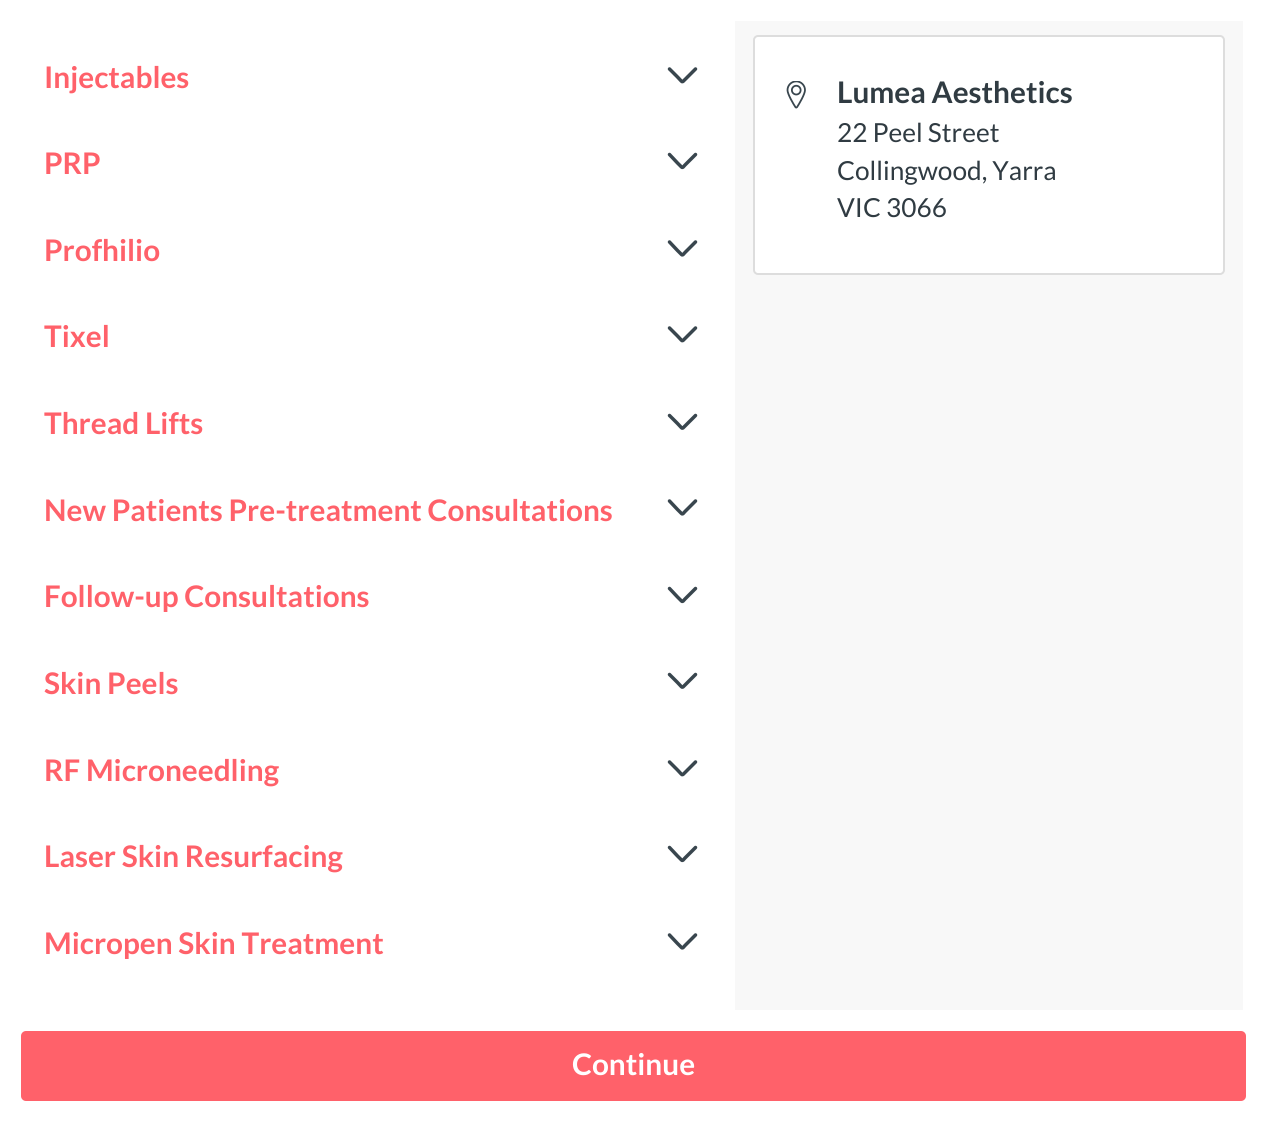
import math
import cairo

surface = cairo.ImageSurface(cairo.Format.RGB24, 1266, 1121)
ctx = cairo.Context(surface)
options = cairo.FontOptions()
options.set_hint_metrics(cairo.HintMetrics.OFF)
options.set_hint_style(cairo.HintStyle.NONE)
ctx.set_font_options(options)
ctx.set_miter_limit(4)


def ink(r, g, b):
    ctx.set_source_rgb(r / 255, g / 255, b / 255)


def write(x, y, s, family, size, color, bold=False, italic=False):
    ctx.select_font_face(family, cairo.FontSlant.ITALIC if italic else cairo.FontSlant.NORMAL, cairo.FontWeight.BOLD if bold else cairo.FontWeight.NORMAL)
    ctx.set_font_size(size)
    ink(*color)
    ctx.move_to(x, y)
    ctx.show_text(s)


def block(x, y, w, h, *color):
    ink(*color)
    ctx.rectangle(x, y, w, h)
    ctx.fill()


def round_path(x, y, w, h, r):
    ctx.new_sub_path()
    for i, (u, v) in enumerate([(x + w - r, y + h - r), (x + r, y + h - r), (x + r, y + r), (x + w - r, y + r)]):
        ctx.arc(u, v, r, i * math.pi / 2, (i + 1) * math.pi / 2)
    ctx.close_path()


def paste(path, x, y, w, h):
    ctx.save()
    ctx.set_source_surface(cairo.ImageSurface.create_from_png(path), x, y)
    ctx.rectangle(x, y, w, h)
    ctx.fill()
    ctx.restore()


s1 = dict(family="Lato", size=29.75, color=(255, 97, 106), bold=True)
s2 = dict(family="Lato", size=29.75, color=(48, 59, 66), bold=True)
s3 = dict(family="Lato", size=26.25, color=(48, 59, 66))
s4 = dict(family="Lato", size=29.75, color=(255, 255, 255), bold=True)

ink(255, 255, 255)
ctx.paint()
write(44, 88, "Injectables", **s1)
ctx.new_path()
ctx.move_to(669.5, 69)
ctx.line_to(677.5, 77)
ctx.curve_to(683, 82.5, 681.5, 83, 685, 79.5)
ctx.line_to(695.5, 69)
ink(57, 70, 78)
ctx.set_line_width(3.5)
ctx.set_line_cap(cairo.LineCap.ROUND)
ctx.set_line_join(cairo.LineJoin.ROUND)
ctx.stroke()
write(44, 174, "PRP", **s1)
ctx.new_path()
ctx.move_to(669.5, 154.5)
ctx.line_to(677.5, 163)
ctx.curve_to(683, 168, 681.5, 169, 685, 165)
ctx.line_to(695.5, 154.5)
ink(57, 70, 78)
ctx.stroke()
write(44, 261, "Profhilio", **s1)
ctx.new_path()
ctx.move_to(669.5, 242)
ctx.line_to(677.5, 250.5)
ctx.curve_to(683, 255.5, 681.5, 256.5, 685, 252.5)
ctx.line_to(695.5, 242)
ink(57, 70, 78)
ctx.stroke()
write(44, 347, "Tixel", **s1)
ctx.new_path()
ctx.move_to(669.5, 328)
ctx.line_to(677.5, 336)
ctx.curve_to(683, 341.5, 681.5, 342, 685, 338.5)
ctx.line_to(695.5, 328)
ink(57, 70, 78)
ctx.stroke()
write(44, 434, "Thread Lifts", **s1)
ctx.new_path()
ctx.move_to(669.5, 415.5)
ctx.line_to(677.5, 423.5)
ctx.curve_to(683, 429, 681.5, 429.5, 685, 426)
ctx.line_to(695.5, 415.5)
ink(57, 70, 78)
ctx.stroke()
write(44, 521, "New Patients Pre-treatment Consultations", **s1)
ctx.new_path()
ctx.move_to(669.5, 501)
ctx.line_to(677.5, 509.5)
ctx.curve_to(683, 514.5, 681.5, 515.5, 685, 511.5)
ctx.line_to(695.5, 501)
ink(57, 70, 78)
ctx.stroke()
write(44, 607, "Follow-up Consultations", **s1)
ctx.new_path()
ctx.move_to(669.5, 588.5)
ctx.line_to(677.5, 597)
ctx.curve_to(683, 602, 681.5, 603, 685, 599)
ctx.line_to(695.5, 588.5)
ink(57, 70, 78)
ctx.stroke()
write(44, 694, "Skin Peels", **s1)
ctx.new_path()
ctx.move_to(669.5, 674.5)
ctx.line_to(677.5, 682.5)
ctx.curve_to(683, 688, 681.5, 688.5, 685, 685)
ctx.line_to(695.5, 674.5)
ink(57, 70, 78)
ctx.stroke()
write(44, 781, "RF Microneedling", **s1)
ctx.new_path()
ctx.move_to(669.5, 762)
ctx.line_to(677.5, 770)
ctx.curve_to(683, 775.5, 681.5, 776, 685, 772.5)
ctx.line_to(695.5, 762)
ink(57, 70, 78)
ctx.stroke()
write(44, 867, "Laser Skin Resurfacing", **s1)
ctx.new_path()
ctx.move_to(669.5, 847.5)
ctx.line_to(677.5, 856)
ctx.curve_to(683, 861, 681.5, 862, 685, 858)
ctx.line_to(695.5, 847.5)
ink(57, 70, 78)
ctx.stroke()
write(44, 954, "Micropen Skin Treatment", **s1)
ctx.new_path()
ctx.move_to(669.5, 935)
ctx.line_to(677.5, 943.5)
ctx.curve_to(683, 948.5, 681.5, 949.5, 685, 945.5)
ctx.line_to(695.5, 935)
ink(57, 70, 78)
ctx.stroke()
block(735, 21, 508, 989, 248, 248, 248)
ink(255, 255, 255)
round_path(754, 36, 470, 238, 4)
ctx.fill_preserve()
ink(221, 221, 221)
ctx.set_line_width(2)
ctx.set_line_cap(cairo.LineCap.BUTT)
ctx.set_line_join(cairo.LineJoin.MITER)
ctx.stroke()
paste("pic1.png", 786, 81, 20, 28)
write(837, 103, "Lumea Aesthetics", **s2)
write(837, 142, "22 Peel Street", **s3)
write(837, 180, "Collingwood, Yarra", **s3)
write(837, 217, "VIC 3066", **s3)
ink(255, 97, 106)
round_path(21, 1031, 1225, 70, 5)
ctx.fill()
write(572, 1075, "Continue", **s4)
surface.write_to_png("screenshot.png")
